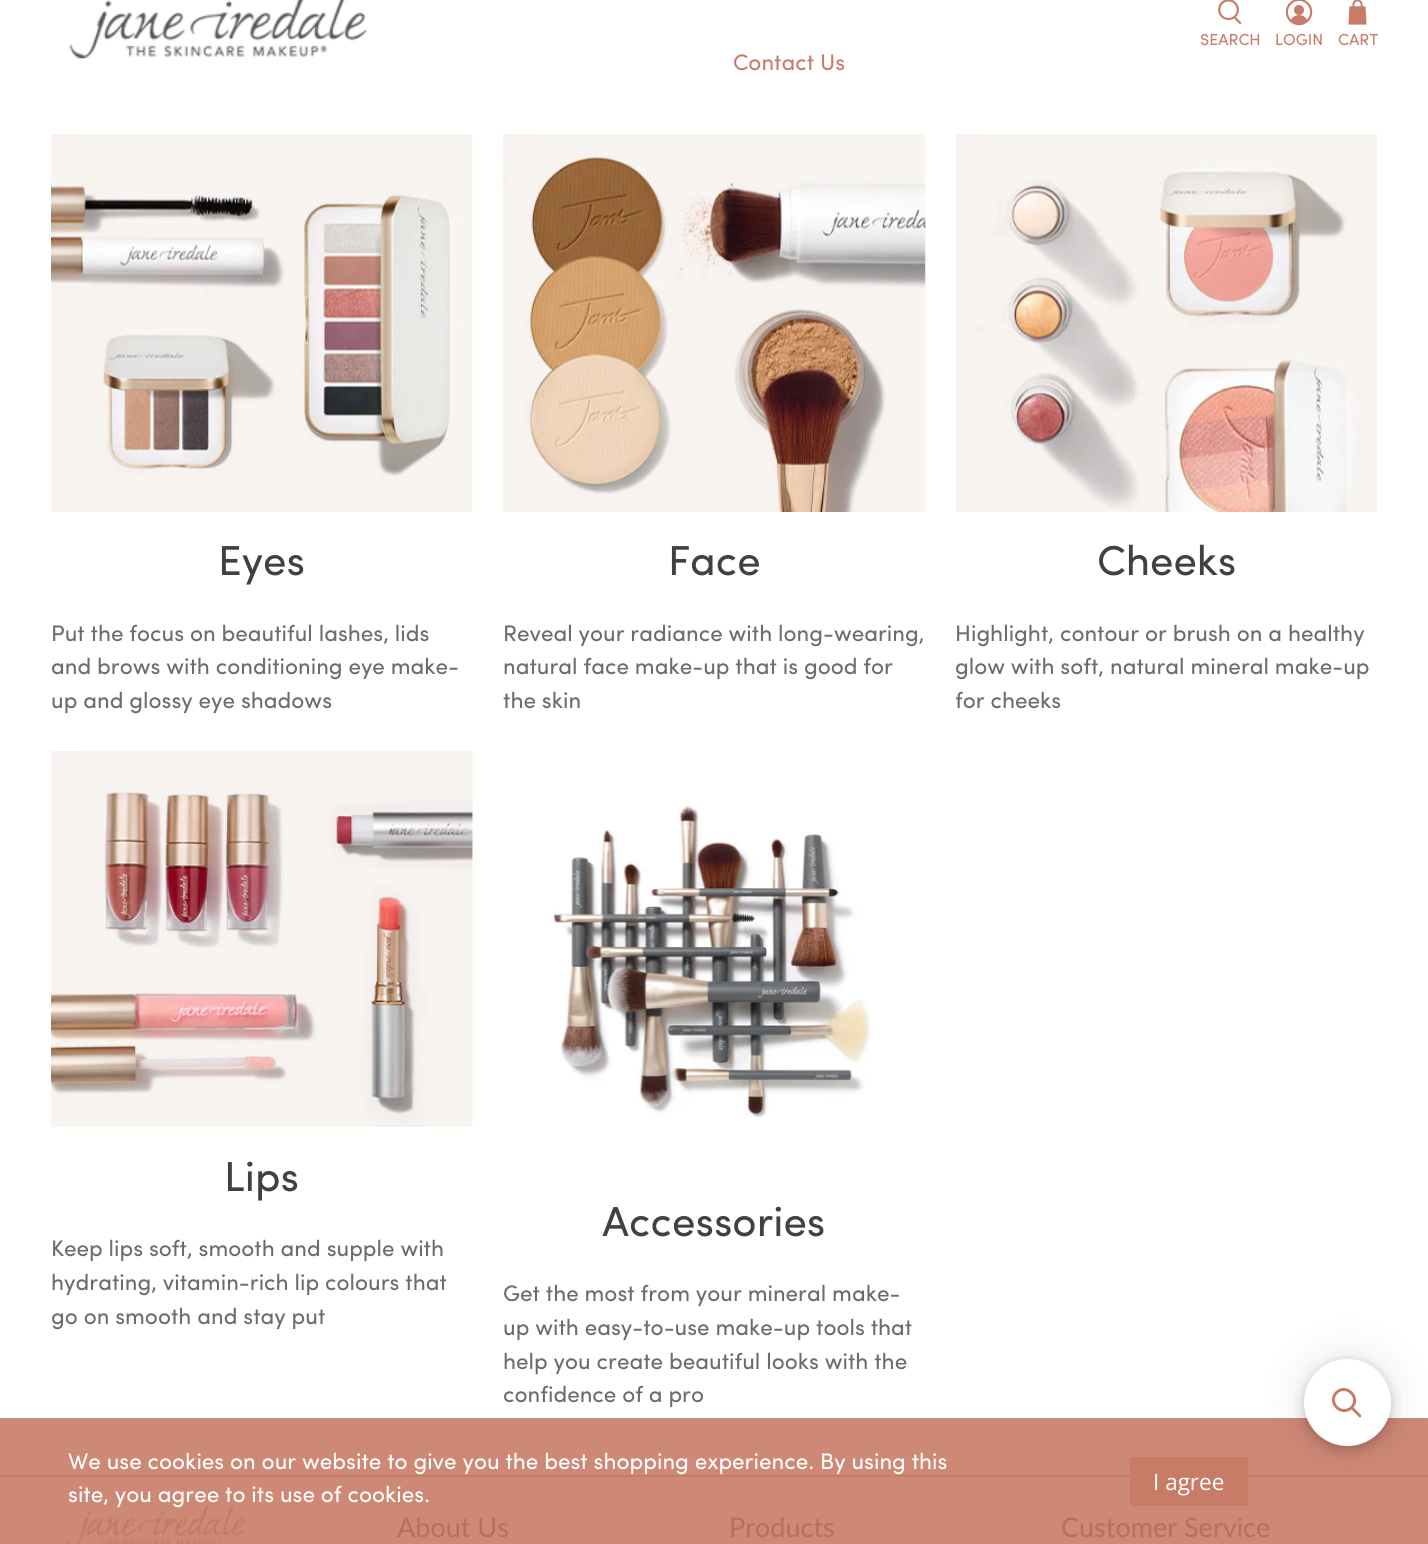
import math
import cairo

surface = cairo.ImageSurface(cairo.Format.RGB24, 1428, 1544)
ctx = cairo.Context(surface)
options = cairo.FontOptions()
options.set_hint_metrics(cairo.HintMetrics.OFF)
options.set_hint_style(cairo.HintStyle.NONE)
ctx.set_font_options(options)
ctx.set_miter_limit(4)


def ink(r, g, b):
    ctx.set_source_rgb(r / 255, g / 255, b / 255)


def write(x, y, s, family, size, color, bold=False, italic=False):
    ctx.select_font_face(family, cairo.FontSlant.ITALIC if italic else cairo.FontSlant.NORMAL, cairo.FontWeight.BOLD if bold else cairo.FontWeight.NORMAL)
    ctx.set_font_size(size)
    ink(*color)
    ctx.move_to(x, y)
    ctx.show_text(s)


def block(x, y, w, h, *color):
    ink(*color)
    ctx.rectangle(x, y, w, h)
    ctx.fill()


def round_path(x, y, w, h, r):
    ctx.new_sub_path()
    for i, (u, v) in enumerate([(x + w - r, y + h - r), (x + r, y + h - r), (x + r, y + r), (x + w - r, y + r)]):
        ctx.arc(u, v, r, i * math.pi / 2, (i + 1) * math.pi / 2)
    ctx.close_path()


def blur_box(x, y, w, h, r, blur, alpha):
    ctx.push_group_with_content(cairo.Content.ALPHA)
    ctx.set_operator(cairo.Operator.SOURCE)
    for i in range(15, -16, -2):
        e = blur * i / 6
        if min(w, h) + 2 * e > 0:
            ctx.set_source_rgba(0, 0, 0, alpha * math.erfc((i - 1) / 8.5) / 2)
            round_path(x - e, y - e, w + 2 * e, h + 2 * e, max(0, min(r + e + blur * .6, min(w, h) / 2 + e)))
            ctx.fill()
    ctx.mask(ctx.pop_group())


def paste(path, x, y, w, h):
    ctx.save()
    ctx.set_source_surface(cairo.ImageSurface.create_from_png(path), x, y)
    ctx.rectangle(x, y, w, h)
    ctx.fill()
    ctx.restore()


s1 = dict(family="Sofia", size=16, color=(200, 123, 103))
s2 = dict(family="Sofia", size=22.5, color=(200, 123, 103))
s3 = dict(family="Sofia", size=42, color=(65, 64, 66))
s4 = dict(family="Sofia", size=22.5, color=(108, 108, 108))
s5 = dict(family="Sofia", size=22.5, color=(255, 255, 255))
s6 = dict(family="Open Sans", size=22.5, color=(255, 255, 255))
s7 = dict(family="Lato", size=27, color=(180, 111, 93))

ink(255, 255, 255)
ctx.paint()
block(0, 1418, 1428, 126, 206, 136, 118)
paste("pic1.png", 68, 0, 300, 59)
paste("pic2.png", 1218, 0, 24, 25)
write(1200, 45, "SEARCH", **s1)
paste("pic3.png", 1286, 0, 27, 26)
write(1275, 45, "LOGIN", **s1)
paste("pic4.png", 1348, 0, 19, 25)
write(1338, 45, "CART", **s1)
write(733, 70, "Contact Us", **s2)
paste("pic5.png", 51, 134, 422, 378)
write(218, 575, "Eyes", **s3)
write(51, 641, "Put the focus on beautiful lashes, lids", **s4)
write(51, 674, "and brows with conditioning eye make-", **s4)
write(51, 708, "up and glossy eye shadows", **s4)
paste("pic6.png", 502, 134, 424, 378)
write(668, 575, "Face", **s3)
write(503, 641, "Reveal your radiance with long-wearing,", **s4)
write(503, 674, "natural face make-up that is good for", **s4)
write(503, 708, "the skin", **s4)
paste("pic7.png", 955, 134, 422, 378)
write(1097, 575, "Cheeks", **s3)
write(955, 641, "Highlight, contour or brush on a healthy", **s4)
write(955, 674, "glow with soft, natural mineral make-up", **s4)
ctx.save()
ctx.rectangle(956, 135, 421, 587)
ctx.clip()
write(955, 708, "for cheeks", **s4)
ctx.restore()
paste("pic8.png", 51, 751, 422, 376)
write(224, 1191, "Lips", **s3)
write(51, 1256, "Keep lips soft, smooth and supple with", **s4)
write(51, 1290, "hydrating, vitamin-rich lip colours that", **s4)
write(51, 1324, "go on smooth and stay put", **s4)
paste("pic9.png", 553, 805, 317, 313)
write(602, 1236, "Accessories", **s3)
write(503, 1301, "Get the most from your mineral make-", **s4)
write(503, 1335, "up with easy-to-use make-up tools that", **s4)
write(503, 1369, "help you create beautiful looks with the", **s4)
write(503, 1402, "confidence of a pro", **s4)
write(68, 1469, "We use cookies on our website to give you the best shopping experience. By using this", **s5)
paste("pic10.png", 65, 1505, 181, 39)
write(68, 1502, "site, you agree to its use of cookies.", **s5)
block(0, 1475, 1428, 2, 200, 123, 103)
block(1130, 1457, 118, 49, 200, 123, 103)
write(1153, 1490, "I agree", **s6)
ink(0, 0, 0)
blur_box(1304, 1365, 87, 87, 43.5, 6, 0.05)
blur_box(1304, 1362, 87, 87, 43.5, 6, 0.15)
blur_box(1304, 1359, 87, 87, 43.5, 22.5, 0.1)
ink(255, 255, 255)
ctx.arc(1347.5, 1402.5, 43.5, 0, 2 * math.pi)
ctx.fill()
ctx.new_path()
ctx.move_to(1336.5, 1392.5)
ctx.curve_to(1346.5, 1383, 1361, 1398, 1351.5, 1407.5)
ctx.curve_to(1341.5, 1417, 1327, 1402.5, 1336.5, 1392.5)
ctx.close_path()
ink(200, 123, 103)
ctx.set_line_width(3)
ctx.stroke()
ctx.new_path()
ctx.move_to(1350.5, 1408.5)
ctx.line_to(1352.5, 1406.5)
ctx.line_to(1361, 1415)
ctx.curve_to(1362, 1416.5, 1360, 1418.5, 1359, 1417)
ctx.close_path()
ctx.fill()
write(397, 1537, "About Us", **s7)
write(729, 1537, "Products", **s7)
write(1061, 1537, "Customer Service", **s7)
surface.write_to_png("screenshot.png")
